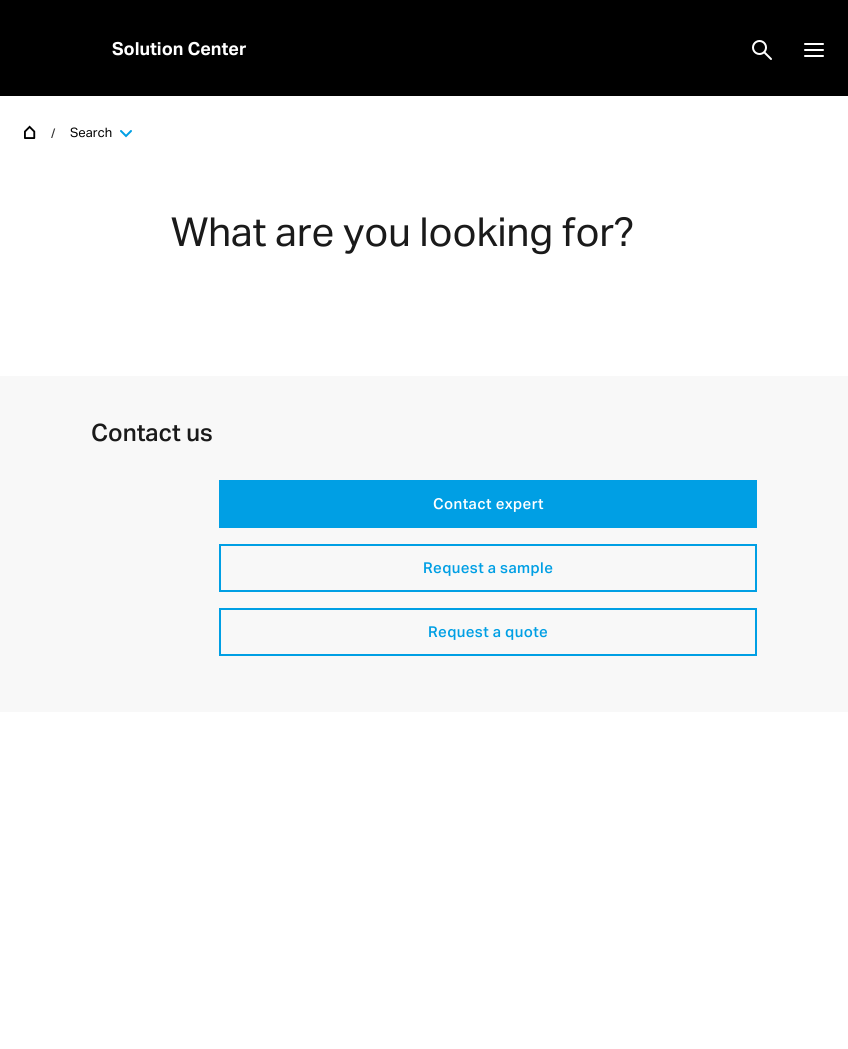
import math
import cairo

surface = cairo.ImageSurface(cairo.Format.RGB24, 848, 1049)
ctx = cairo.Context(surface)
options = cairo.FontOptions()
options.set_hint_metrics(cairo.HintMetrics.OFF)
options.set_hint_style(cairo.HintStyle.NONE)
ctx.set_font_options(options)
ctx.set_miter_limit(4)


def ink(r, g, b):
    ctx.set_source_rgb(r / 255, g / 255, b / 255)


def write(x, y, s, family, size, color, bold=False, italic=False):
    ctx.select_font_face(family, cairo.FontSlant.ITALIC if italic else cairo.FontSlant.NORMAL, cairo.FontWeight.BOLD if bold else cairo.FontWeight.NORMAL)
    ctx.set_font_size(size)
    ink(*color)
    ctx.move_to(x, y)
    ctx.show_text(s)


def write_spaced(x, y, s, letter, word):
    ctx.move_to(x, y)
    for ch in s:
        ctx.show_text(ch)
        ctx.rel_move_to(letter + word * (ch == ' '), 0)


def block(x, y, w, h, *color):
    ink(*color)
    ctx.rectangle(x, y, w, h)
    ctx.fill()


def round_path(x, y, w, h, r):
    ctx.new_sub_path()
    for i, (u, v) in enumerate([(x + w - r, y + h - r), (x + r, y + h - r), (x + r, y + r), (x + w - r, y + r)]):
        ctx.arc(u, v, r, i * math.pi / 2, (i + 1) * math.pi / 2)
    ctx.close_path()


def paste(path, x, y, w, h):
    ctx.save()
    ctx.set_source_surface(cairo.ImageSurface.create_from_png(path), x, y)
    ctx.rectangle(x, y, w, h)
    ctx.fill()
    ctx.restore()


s1 = dict(family="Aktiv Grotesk", size=18, color=(255, 255, 255), bold=True)
s2 = dict(family="Aktiv Grotesk", size=13, color=(51, 51, 51))
s3 = dict(family="Aktiv Grotesk", size=13, color=(0, 0, 0))
s4 = dict(family="Aktiv Grotesk", size=40, color=(26, 26, 26))
s5 = dict(family="Aktiv Grotesk Medium", size=24, color=(26, 26, 26))

ink(255, 255, 255)
ctx.paint()
block(0, 0, 848, 96, 0, 0, 0)
write(112, 55, "Solution Center", **s1)
paste("pic1.png", 752, 40, 20, 20)
round_path(804, 49, 20, 2, 1)
ctx.fill()
round_path(804, 43, 20, 2, 1)
ctx.fill()
round_path(804, 55, 20, 2, 1)
ctx.fill()
paste("pic2.png", 24, 125, 12, 14)
write(51, 138, "/", **s2)
write(70, 137, "Search", **s3)
paste("pic3.png", 120, 130, 12, 8)
write(171, 246, "What are you looking for?", **s4)
block(0, 376, 848, 336, 248, 248, 248)
write(91, 441, "Contact us", **s5)
block(219, 480, 538, 48, 0, 159, 228)
ctx.set_font_size(15)
ink(255, 255, 255)
write_spaced(433, 509, "Contact expert", 0.4, 0)
ctx.rectangle(220, 545, 536, 46)
ink(0, 159, 228)
ctx.stroke()
write_spaced(423, 573, "Request a sample", 0.4, 0)
ctx.rectangle(220, 609, 536, 46)
ctx.stroke()
write_spaced(428, 637, "Request a quote", 0.4, 0)
surface.write_to_png("screenshot.png")
